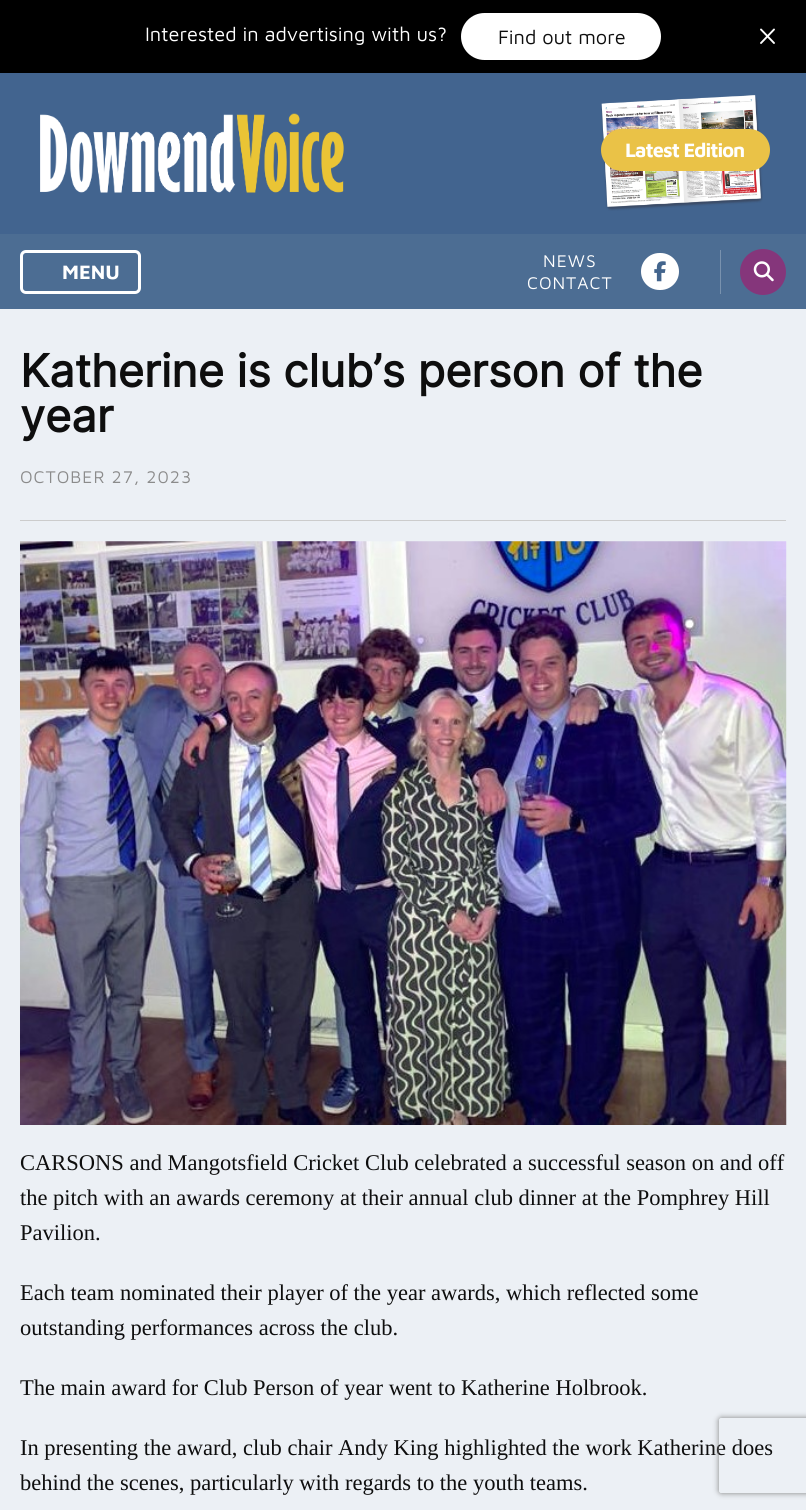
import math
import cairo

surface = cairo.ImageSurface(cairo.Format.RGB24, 806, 1510)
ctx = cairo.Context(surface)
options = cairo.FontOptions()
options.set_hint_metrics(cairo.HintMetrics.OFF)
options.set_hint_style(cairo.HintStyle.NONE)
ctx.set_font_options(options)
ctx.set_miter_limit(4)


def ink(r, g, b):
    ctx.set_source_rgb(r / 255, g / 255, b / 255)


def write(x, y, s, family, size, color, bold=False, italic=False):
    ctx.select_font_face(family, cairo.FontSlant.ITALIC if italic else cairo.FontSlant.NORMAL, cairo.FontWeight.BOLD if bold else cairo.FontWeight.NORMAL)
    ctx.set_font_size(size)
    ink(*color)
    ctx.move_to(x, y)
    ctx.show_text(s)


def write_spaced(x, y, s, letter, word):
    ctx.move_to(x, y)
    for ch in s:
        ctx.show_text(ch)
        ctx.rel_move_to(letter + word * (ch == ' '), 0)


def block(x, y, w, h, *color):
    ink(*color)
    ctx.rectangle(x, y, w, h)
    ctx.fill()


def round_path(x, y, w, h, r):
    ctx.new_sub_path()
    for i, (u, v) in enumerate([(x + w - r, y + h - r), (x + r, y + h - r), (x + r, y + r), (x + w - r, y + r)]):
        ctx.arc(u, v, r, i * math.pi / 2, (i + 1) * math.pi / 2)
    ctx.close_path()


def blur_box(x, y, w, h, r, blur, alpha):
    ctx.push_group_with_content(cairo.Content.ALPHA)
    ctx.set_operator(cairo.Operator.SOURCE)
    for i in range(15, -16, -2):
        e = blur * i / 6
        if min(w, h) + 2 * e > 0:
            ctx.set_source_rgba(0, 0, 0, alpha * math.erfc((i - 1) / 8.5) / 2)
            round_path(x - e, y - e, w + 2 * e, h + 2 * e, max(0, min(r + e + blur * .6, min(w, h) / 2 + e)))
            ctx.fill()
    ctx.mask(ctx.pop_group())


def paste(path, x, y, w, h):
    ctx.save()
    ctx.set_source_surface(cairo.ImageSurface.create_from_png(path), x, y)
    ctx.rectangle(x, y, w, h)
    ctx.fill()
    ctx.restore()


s1 = dict(family="Maven Pro", size=20, color=(255, 255, 255))
s2 = dict(family="Maven Pro", size=20, color=(14, 14, 14))
s3 = dict(family="Maven Pro", size=20, color=(255, 255, 255), bold=True)
s4 = dict(family="Inter", size=45, color=(14, 14, 14), bold=True)
s5 = dict(family="Liberation Serif", size=22.5, color=(14, 14, 14))

ink(236, 240, 245)
ctx.paint()
block(0, 0, 806, 73, 0, 0, 0)
write(145, 41, "Interested in advertising with us?", **s1)
round_path(461, 13, 200, 47, 23.5)
ctx.fill()
write(498, 44, "Find out more", **s2)
ctx.new_path()
ctx.move_to(774, 29.5)
ctx.line_to(761, 43)
ctx.move_to(761, 29.5)
ctx.line_to(774, 43)
ink(255, 255, 255)
ctx.set_line_width(1.9)
ctx.set_line_cap(cairo.LineCap.ROUND)
ctx.set_line_join(cairo.LineJoin.ROUND)
ctx.stroke()
block(0, 73, 806, 161, 66, 100, 143)
paste("pic1.png", 40, 113, 304, 80)
paste("pic2.png", 601, 95, 162, 116)
ink(234, 194, 71)
round_path(601, 129, 169, 42, 21)
ctx.fill()
ctx.select_font_face("Maven Pro", cairo.FontSlant.NORMAL, cairo.FontWeight.BOLD)
ink(255, 255, 255)
write_spaced(625, 157, "Latest Edition", -1, 0)
block(0, 234, 806, 75, 76, 109, 147)
round_path(21.5, 251.5, 118, 41, 4.5)
ink(255, 255, 255)
ctx.set_line_width(3)
ctx.set_line_cap(cairo.LineCap.BUTT)
ctx.set_line_join(cairo.LineJoin.MITER)
ctx.stroke()
write(62, 279, "MENU", **s3)
block(720, 250, 1, 44, 121, 146, 174)
ctx.select_font_face("Maven Pro")
ctx.set_font_size(17.5)
ink(255, 255, 255)
write_spaced(543, 267, "NEWS", 1, 0)
write_spaced(527, 289, "CONTACT", 1, 0)
round_path(641, 253, 38, 37, 18.5)
ctx.fill()
paste("pic3.png", 654, 261, 12, 21)
ink(133, 54, 123)
ctx.arc(763, 272, 23, 0, 2 * math.pi)
ctx.fill()
paste("pic4.png", 753, 261, 21, 21)
write(20, 387, "Katherine is club’s person of the", **s4)
write(20, 432, "year", **s4)
ctx.select_font_face("Maven Pro")
ctx.set_font_size(17.5)
ink(139, 139, 139)
write_spaced(20, 483, "OCTOBER 27, 2023", 1, 0)
block(20, 520, 766, 1, 204, 204, 204)
paste("pic5.png", 20, 541, 767, 584)
write(20, 1170, "CARSONS and Mangotsfield Cricket Club celebrated a successful season on and off", **s5)
write(20, 1205, "the pitch with an awards ceremony at their annual club dinner at the Pomphrey Hill", **s5)
write(20, 1240, "Pavilion.", **s5)
write(20, 1300, "Each team nominated their player of the year awards, which reflected some", **s5)
write(20, 1335, "outstanding performances across the club.", **s5)
write(20, 1395, "The main award for Club Person of year went to Katherine Holbrook.", **s5)
write(20, 1455, "In presenting the award, club chair Andy King highlighted the work Katherine does", **s5)
write(20, 1490, "behind the scenes, particularly with regards to the youth teams.", **s5)
ctx.save()
ctx.set_fill_rule(cairo.FillRule.EVEN_ODD)
ctx.new_path()
ctx.move_to(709, 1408)
ctx.line_to(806, 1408)
ctx.line_to(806, 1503)
ctx.line_to(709, 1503)
ctx.close_path()
ctx.move_to(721.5, 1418)
ctx.line_to(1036.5, 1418)
ctx.curve_to(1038, 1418, 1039, 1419, 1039, 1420.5)
ctx.line_to(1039, 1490.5)
ctx.curve_to(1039, 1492, 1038, 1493, 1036.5, 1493)
ctx.line_to(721.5, 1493)
ctx.curve_to(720, 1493, 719, 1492, 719, 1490.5)
ctx.line_to(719, 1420.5)
ctx.curve_to(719, 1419, 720, 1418, 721.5, 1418)
ctx.close_path()
ctx.clip()
ink(128, 128, 128)
blur_box(719, 1418, 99, 75, 2.5, 3, 1)
ctx.restore()
surface.write_to_png("screenshot.png")
